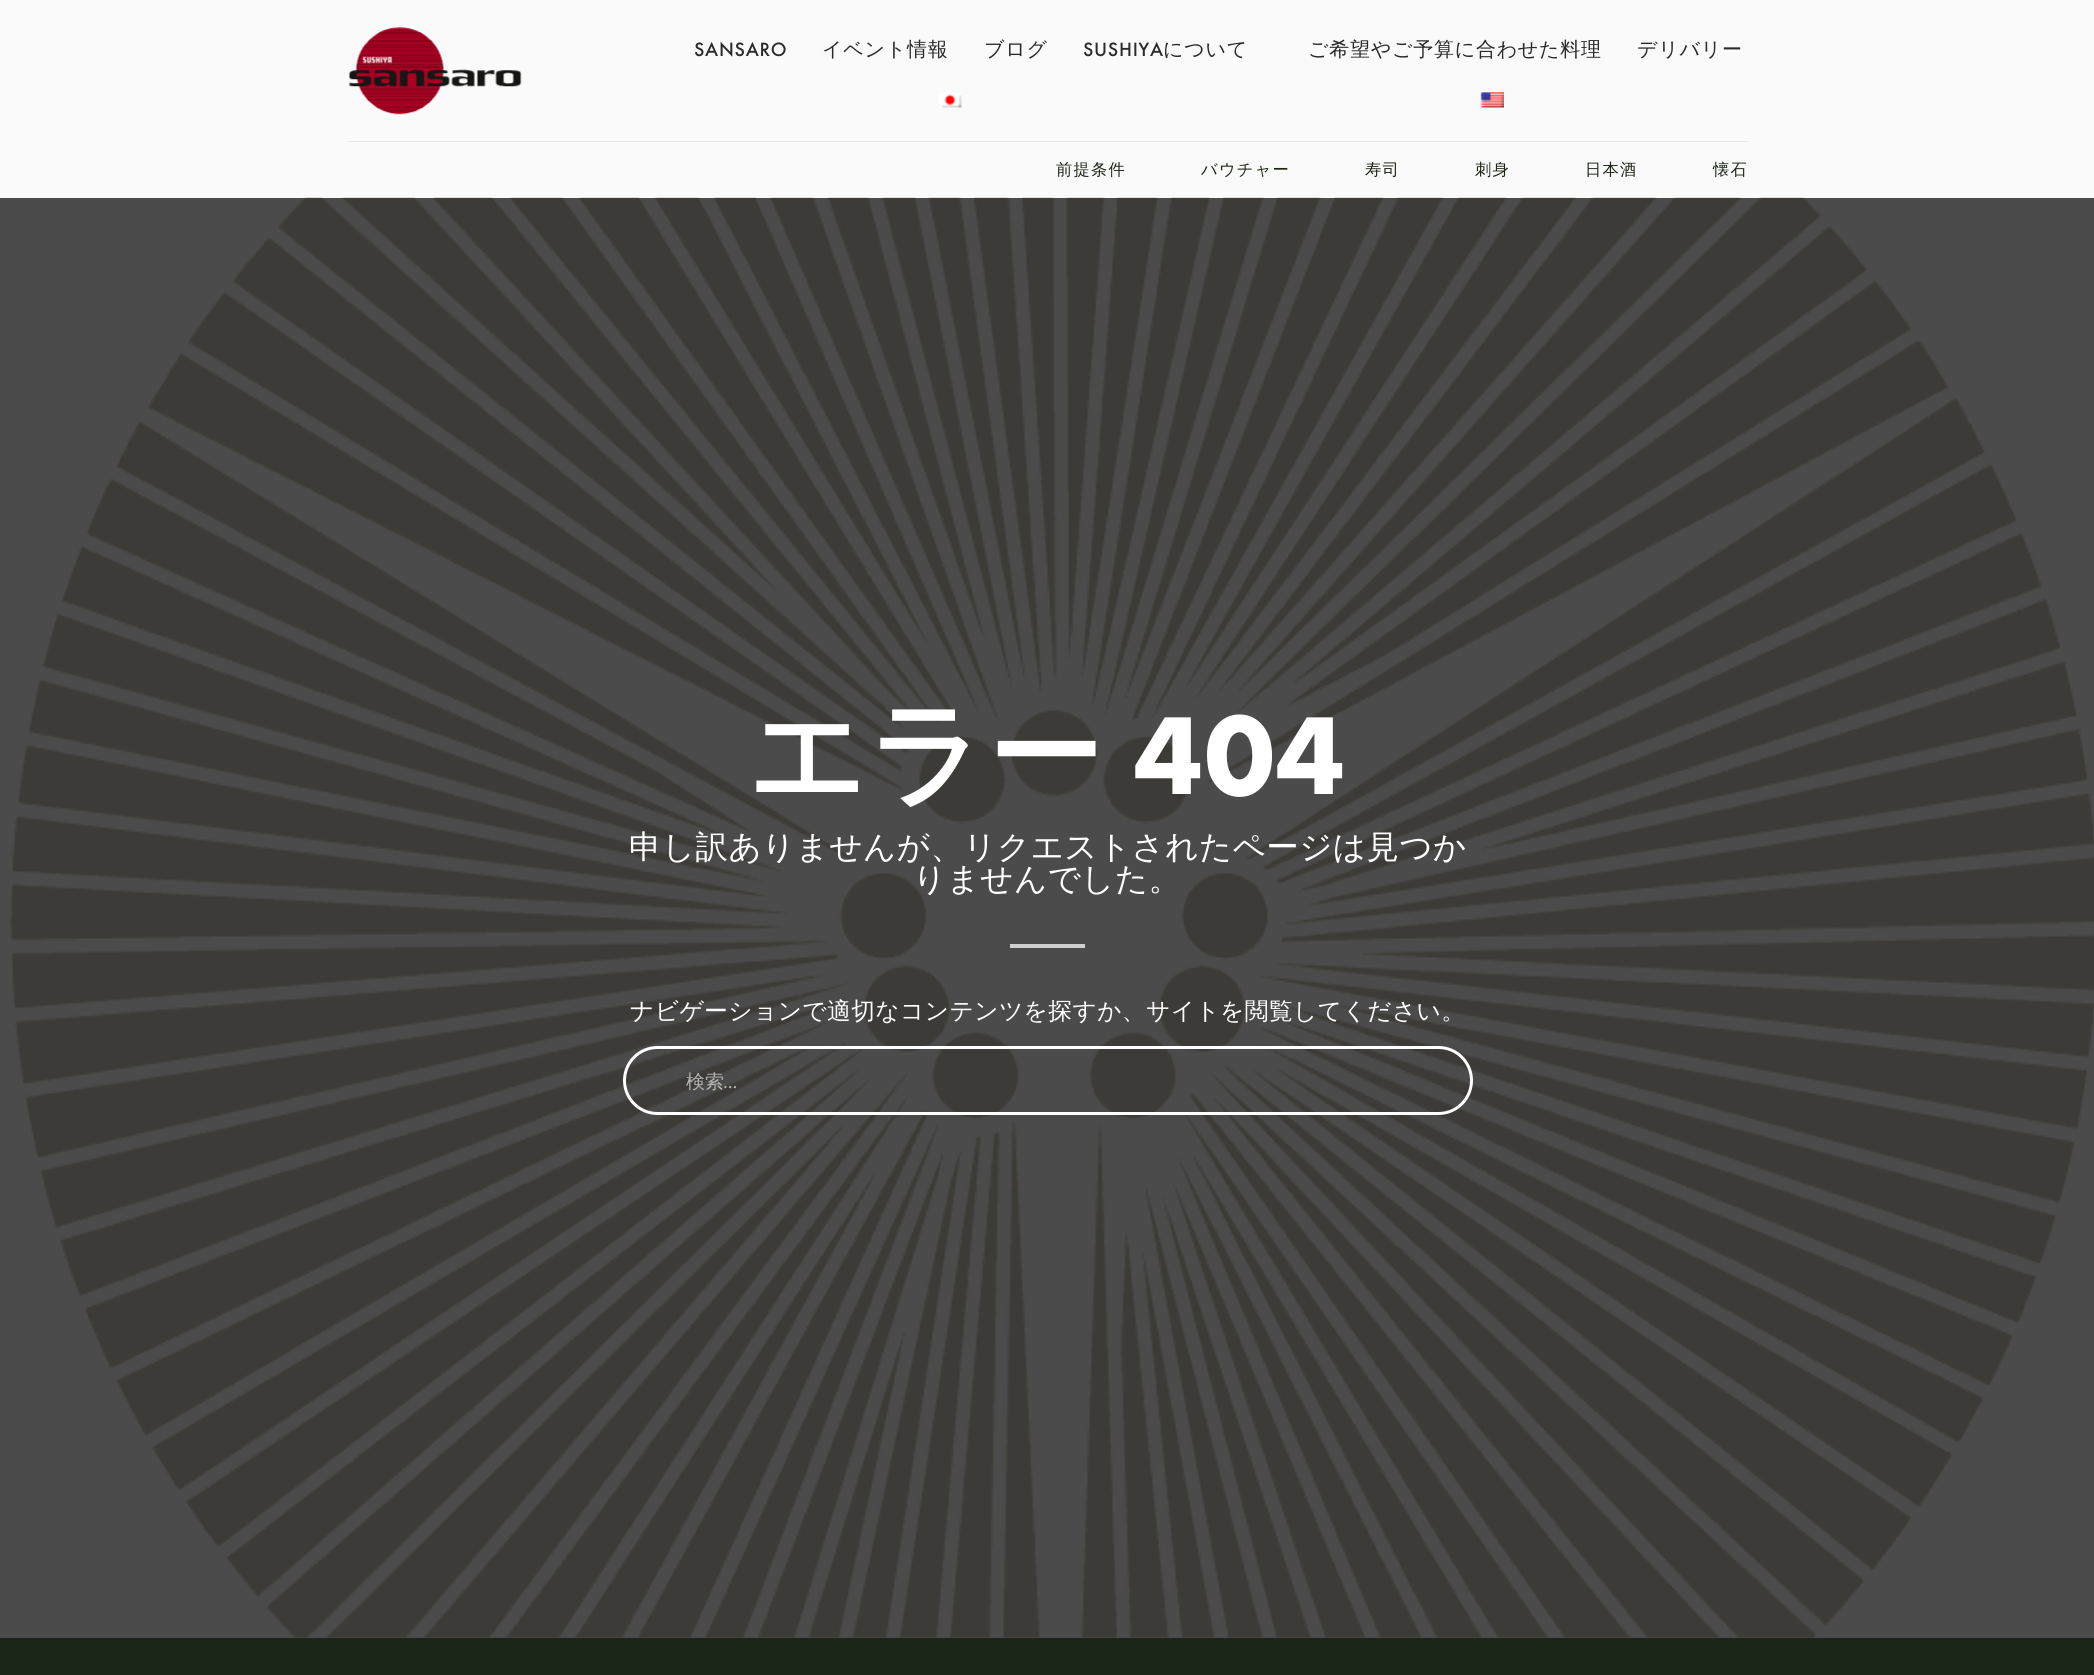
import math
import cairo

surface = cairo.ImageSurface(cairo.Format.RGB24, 2094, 1675)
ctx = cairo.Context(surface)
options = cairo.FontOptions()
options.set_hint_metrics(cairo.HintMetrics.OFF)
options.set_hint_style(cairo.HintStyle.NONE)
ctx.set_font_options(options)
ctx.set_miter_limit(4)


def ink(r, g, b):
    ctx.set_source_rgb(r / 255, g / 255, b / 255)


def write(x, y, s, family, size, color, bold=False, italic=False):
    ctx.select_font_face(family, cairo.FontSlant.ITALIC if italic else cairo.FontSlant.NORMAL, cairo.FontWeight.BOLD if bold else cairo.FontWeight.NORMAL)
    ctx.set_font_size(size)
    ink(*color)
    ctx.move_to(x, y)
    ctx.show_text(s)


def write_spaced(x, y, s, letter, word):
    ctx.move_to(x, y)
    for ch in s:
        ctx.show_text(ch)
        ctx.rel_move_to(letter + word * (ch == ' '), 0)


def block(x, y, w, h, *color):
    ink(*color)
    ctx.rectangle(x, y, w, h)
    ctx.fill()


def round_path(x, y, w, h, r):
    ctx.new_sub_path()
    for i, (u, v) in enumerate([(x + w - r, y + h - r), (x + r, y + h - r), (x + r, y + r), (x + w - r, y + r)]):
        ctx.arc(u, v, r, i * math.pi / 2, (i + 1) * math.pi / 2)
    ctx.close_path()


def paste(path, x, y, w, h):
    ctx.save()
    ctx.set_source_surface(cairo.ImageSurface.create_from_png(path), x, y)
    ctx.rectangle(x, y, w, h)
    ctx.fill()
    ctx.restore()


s1 = dict(family="WenQuanYi Zen Hei Medium", size=19, color=(180, 180, 179))
s2 = dict(family="Futura Medium", size=19, color=(180, 180, 179))

ink(251, 250, 250)
ctx.paint()
block(0, 198, 2094, 1440, 75, 75, 75)
paste("pic1.png", 349, 27, 173, 88)
ctx.select_font_face("Futura Medium")
ctx.set_font_size(20)
ink(42, 42, 42)
write_spaced(694, 56, "SANSARO", 0.75, 0)
ctx.select_font_face("WenQuanYi Zen Hei Medium")
write_spaced(822, 56, "イベント情報", 0.75, 0)
write_spaced(984, 56, "ブログ", 0.75, 0)
ctx.select_font_face("Futura Medium")
write_spaced(1083, 56, "SUSHIYA", 0.75, 0)
ctx.select_font_face("WenQuanYi Zen Hei Medium")
write_spaced(1163, 56, "について", 0.75, 0)
write_spaced(1308, 56, "ご希望やご予算に合わせた料理", 0.75, 0)
write_spaced(1637, 56, "デリバリー", 0.75, 0)
paste("pic2.png", 939, 93, 23, 15)
paste("pic3.png", 1480, 92, 24, 16)
block(348, 141, 1400, 1, 232, 230, 224)
ctx.set_font_size(16.25)
ink(28, 38, 22)
write_spaced(1056, 175, "前提条件", 1.25, 0)
write_spaced(1201, 175, "バウチャー", 1.25, 0)
write_spaced(1365, 175, "寿司", 1.25, 0)
write_spaced(1475, 175, "刺身", 1.25, 0)
write_spaced(1585, 175, "日本酒", 1.25, 0)
write_spaced(1713, 175, "懐石", 1.25, 0)
paste("pic4.png", 10, 197, 2084, 1441)
ctx.select_font_face("WenQuanYi Zen Hei", cairo.FontSlant.NORMAL, cairo.FontWeight.BOLD)
ctx.set_font_size(115)
ink(255, 255, 255)
write_spaced(748, 794, "エラー", 2, 0)
ctx.select_font_face("Futura", cairo.FontSlant.NORMAL, cairo.FontWeight.BOLD)
write_spaced(1134, 794, "404", 2, 0)
ctx.select_font_face("WenQuanYi Zen Hei Medium")
ctx.set_font_size(32.5)
write_spaced(629, 858, "申し訳ありませんが、リクエストされたページは見つか", 0.4, 0)
write_spaced(913, 890, "りませんでした。", 0.4, 0)
block(1010, 944, 75, 4, 208, 208, 208)
ctx.set_font_size(23.75)
ink(255, 255, 255)
write_spaced(630, 1019, "ナビゲーションで適切なコンテンツを探すか、サイトを閲覧してください。", 0.4, 0)
round_path(624.5, 1047.5, 847, 66, 33)
ctx.set_line_width(3)
ctx.stroke()
write(686, 1088, "検索", **s1)
write(723, 1088, "...", **s2)
block(0, 1638, 2094, 37, 28, 38, 22)
surface.write_to_png("screenshot.png")
